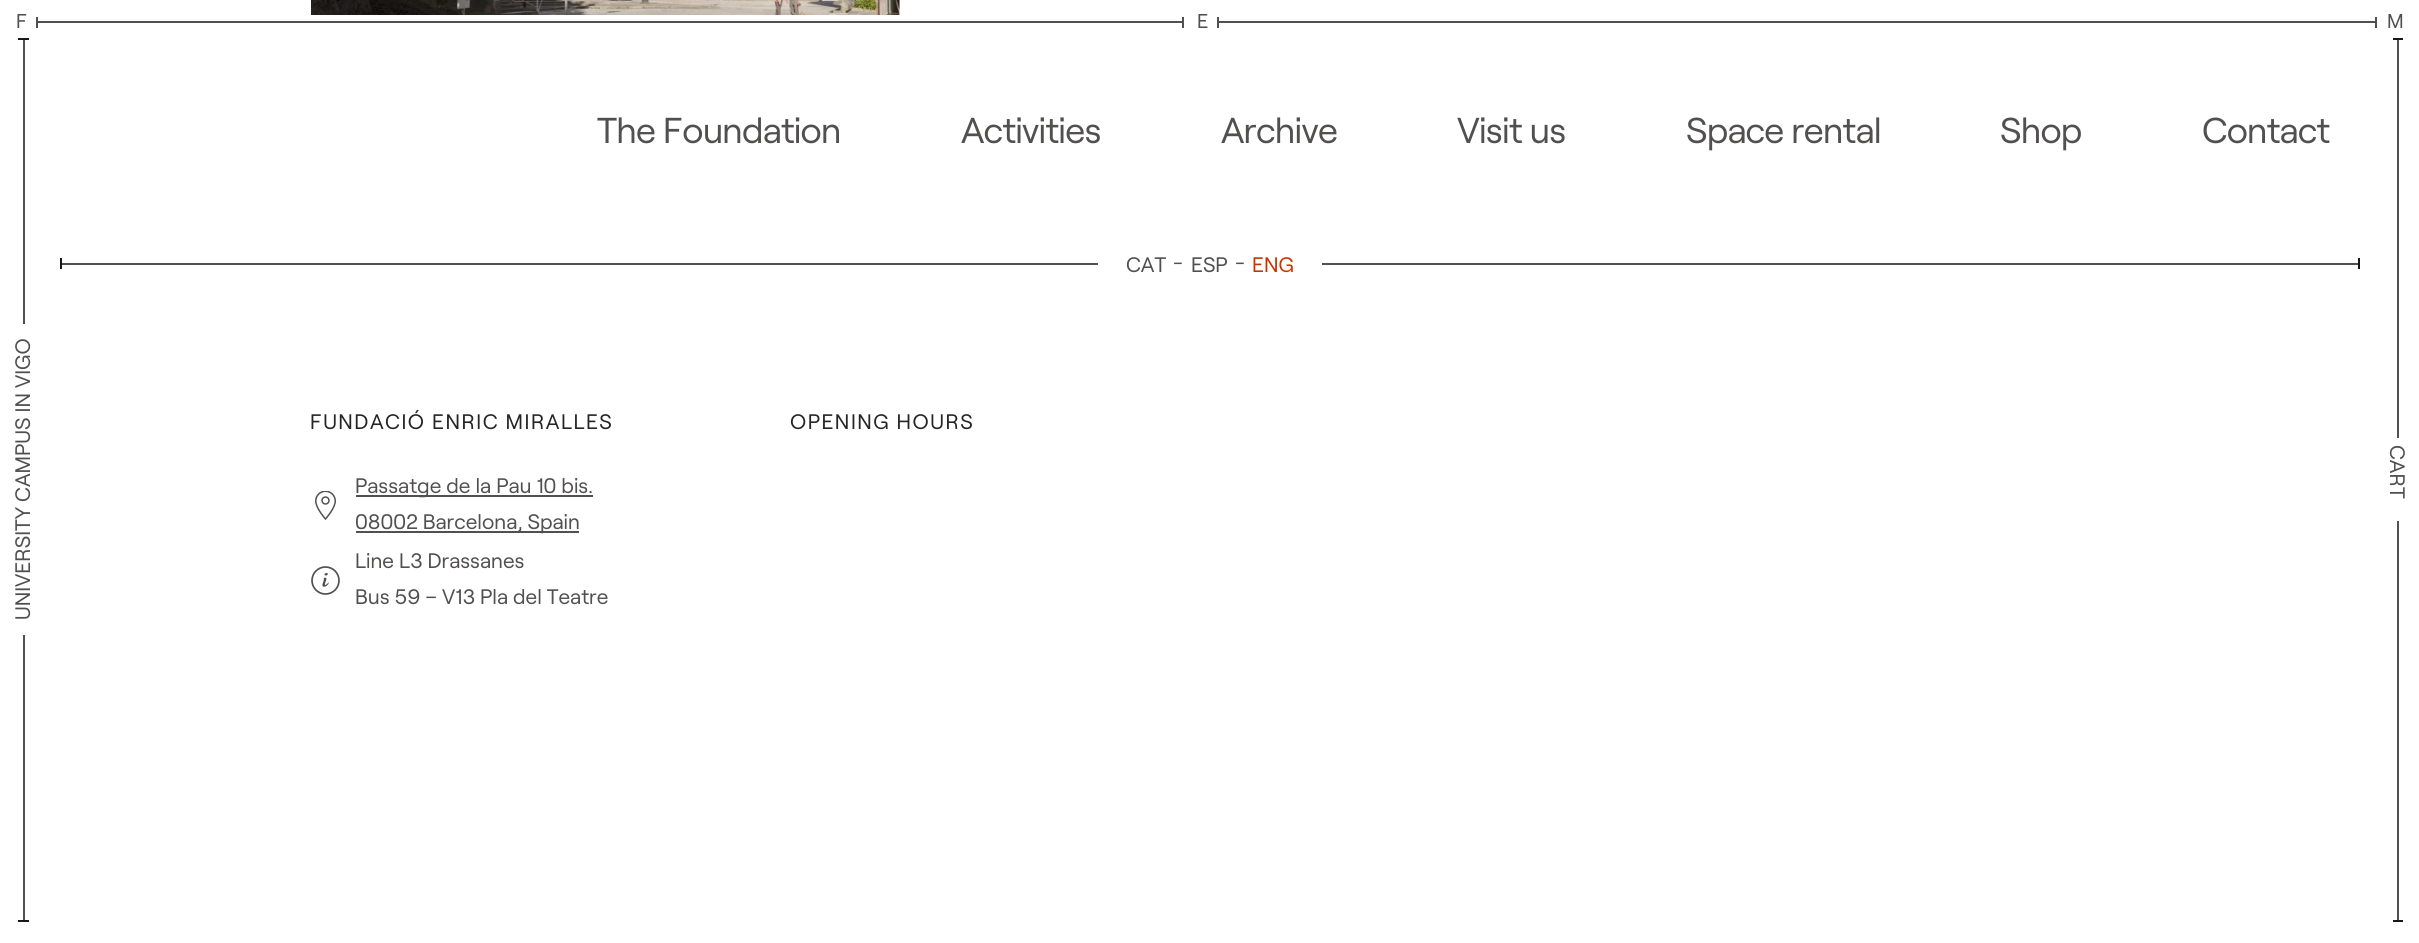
import math
import cairo

surface = cairo.ImageSurface(cairo.Format.RGB24, 2419, 943)
ctx = cairo.Context(surface)
options = cairo.FontOptions()
options.set_hint_metrics(cairo.HintMetrics.OFF)
options.set_hint_style(cairo.HintStyle.NONE)
ctx.set_font_options(options)
ctx.set_miter_limit(4)


def ink(r, g, b):
    ctx.set_source_rgb(r / 255, g / 255, b / 255)


def write(x, y, s, family, size, color, bold=False, italic=False):
    ctx.select_font_face(family, cairo.FontSlant.ITALIC if italic else cairo.FontSlant.NORMAL, cairo.FontWeight.BOLD if bold else cairo.FontWeight.NORMAL)
    ctx.set_font_size(size)
    ink(*color)
    ctx.move_to(x, y)
    ctx.show_text(s)


def write_spaced(x, y, s, letter, word):
    ctx.move_to(x, y)
    for ch in s:
        ctx.show_text(ch)
        ctx.rel_move_to(letter + word * (ch == ' '), 0)


def block(x, y, w, h, *color):
    ink(*color)
    ctx.rectangle(x, y, w, h)
    ctx.fill()


def paste(path, x, y, w, h):
    ctx.save()
    ctx.set_source_surface(cairo.ImageSurface.create_from_png(path), x, y)
    ctx.rectangle(x, y, w, h)
    ctx.fill()
    ctx.restore()


s1 = dict(family="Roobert", size=20, color=(82, 79, 79))
s2 = dict(family="Roobert", size=21, color=(82, 79, 79))
s3 = dict(family="Roobert", size=21, color=(201, 52, 1))

ink(255, 255, 255)
ctx.paint()
paste("pic1.png", 311, 0, 589, 15)
write(16, 28, "F", **s1)
block(1182, 17, 2, 11, 82, 79, 79)
block(36, 21, 1148, 2, 82, 79, 79)
block(36, 17, 2, 11, 82, 79, 79)
write(1197, 28, "E", **s1)
block(2375, 17, 2, 11, 82, 79, 79)
block(1217, 21, 1159, 2, 82, 79, 79)
block(1217, 17, 2, 11, 82, 79, 79)
write(2387, 28, "M", **s1)
ctx.set_font_size(36)
write_spaced(597, 143, "The Foundation", -0.75, 0)
write_spaced(961, 143, "Activities", -0.75, 0)
write_spaced(1221, 143, "Archive", -0.75, 0)
write_spaced(1457, 143, "Visit us", -0.75, 0)
write_spaced(1686, 143, "Space rental", -0.75, 0)
write_spaced(2000, 143, "Shop", -0.75, 0)
write_spaced(2202, 143, "Contact", -0.75, 0)
block(60, 263, 1038, 2, 82, 79, 79)
block(60, 258, 2, 11, 26, 23, 27)
write(1126, 272, "CAT", **s2)
write(1173, 270, "-", **s2)
write(1191, 272, "ESP", **s2)
write(1235, 270, "-", **s2)
write(1252, 272, "ENG", **s3)
block(1322, 263, 1038, 2, 82, 79, 79)
block(2358, 258, 2, 11, 26, 23, 27)
block(23, 38, 2, 286, 82, 79, 79)
block(18, 38, 11, 2, 26, 23, 27)
ctx.save()
ctx.translate(30, 620)
ctx.rotate(-90 * math.pi / 180)
write(0, 0, "UNIVERSITY CAMPUS IN VIGO", **s2)
ctx.restore()
block(23, 635, 2, 286, 82, 79, 79)
block(18, 920, 11, 2, 26, 23, 27)
ctx.select_font_face("Roobert")
ctx.set_font_size(21)
ink(38, 37, 38)
write_spaced(310, 429, "FUNDACIÓ ENRIC MIRALLES", 1.5, 0)
paste("pic2.png", 315, 491, 21, 29)
block(356, 495, 237, 2, 82, 79, 79)
write(355, 493, "Passatge de la Pau 10 bis.", **s2)
block(356, 531, 223, 2, 82, 79, 79)
write(355, 529, "08002 Barcelona, Spain", **s2)
paste("pic3.png", 311, 566, 29, 29)
write(355, 568, "Line L3 Drassanes", **s2)
write(355, 604, "Bus 59 – V13 Pla del Teatre", **s2)
ink(38, 37, 38)
write_spaced(790, 429, "OPENING HOURS", 1.5, 0)
block(2397, 38, 2, 400, 82, 79, 79)
block(2393, 38, 10, 2, 26, 23, 27)
ctx.save()
ctx.translate(2390, 445)
ctx.rotate(90 * math.pi / 180)
write(0, 0, "CART", **s2)
ctx.restore()
block(2397, 521, 2, 400, 82, 79, 79)
block(2393, 920, 10, 2, 26, 23, 27)
surface.write_to_png("screenshot.png")
